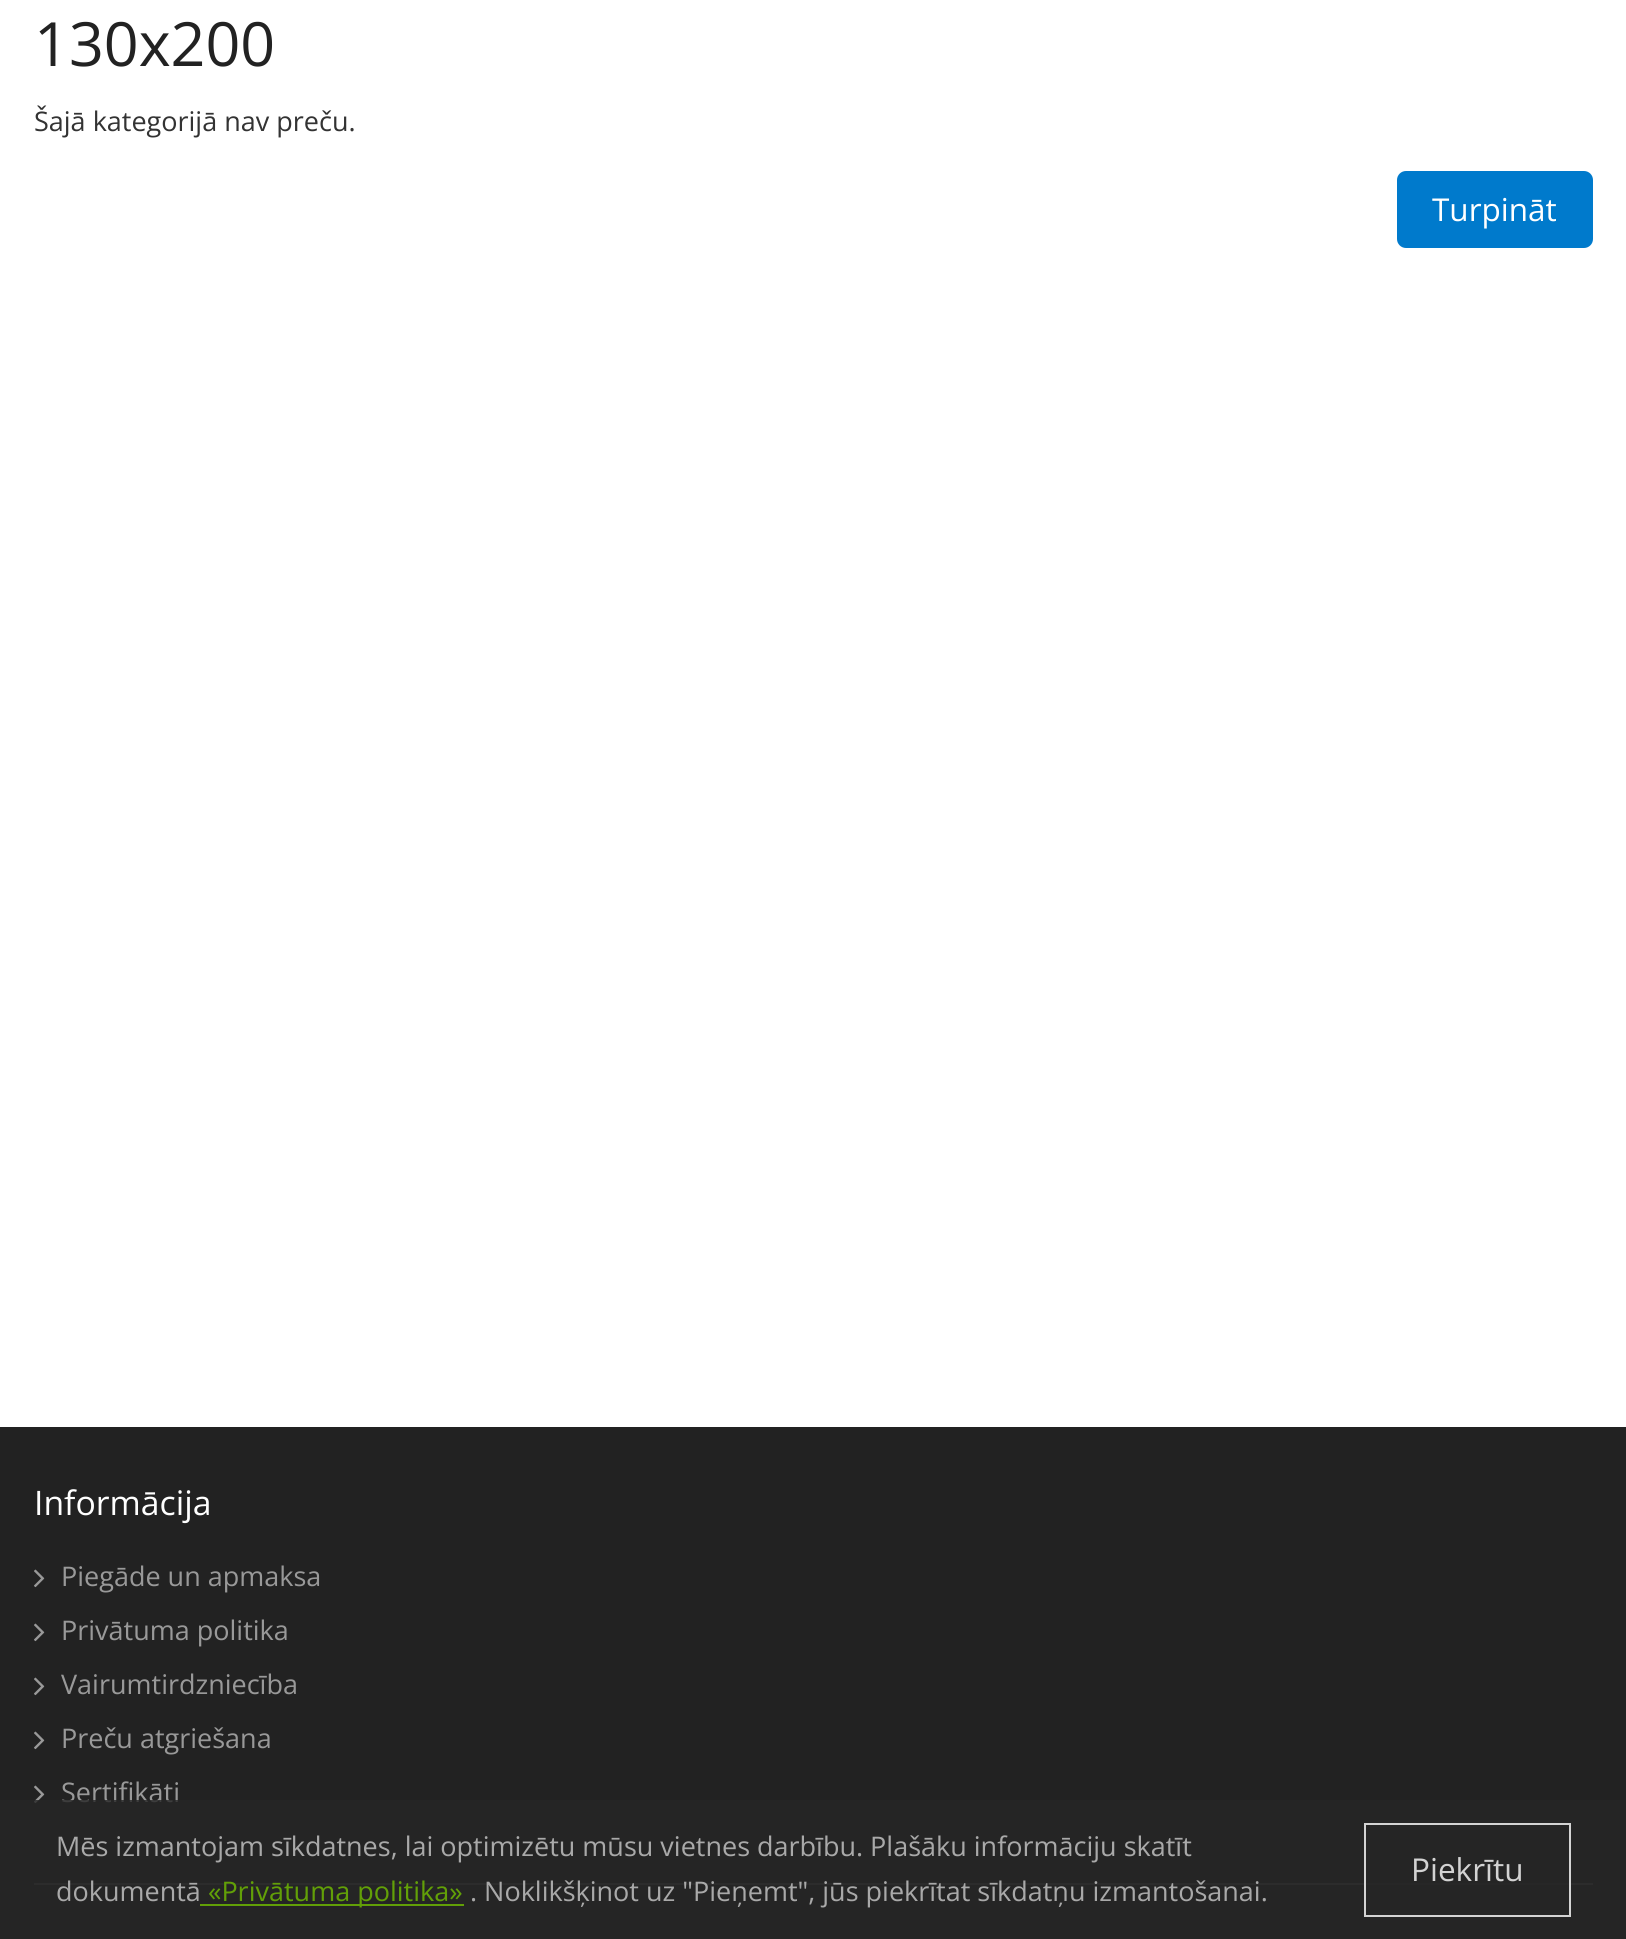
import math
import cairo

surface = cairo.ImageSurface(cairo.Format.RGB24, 1626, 1939)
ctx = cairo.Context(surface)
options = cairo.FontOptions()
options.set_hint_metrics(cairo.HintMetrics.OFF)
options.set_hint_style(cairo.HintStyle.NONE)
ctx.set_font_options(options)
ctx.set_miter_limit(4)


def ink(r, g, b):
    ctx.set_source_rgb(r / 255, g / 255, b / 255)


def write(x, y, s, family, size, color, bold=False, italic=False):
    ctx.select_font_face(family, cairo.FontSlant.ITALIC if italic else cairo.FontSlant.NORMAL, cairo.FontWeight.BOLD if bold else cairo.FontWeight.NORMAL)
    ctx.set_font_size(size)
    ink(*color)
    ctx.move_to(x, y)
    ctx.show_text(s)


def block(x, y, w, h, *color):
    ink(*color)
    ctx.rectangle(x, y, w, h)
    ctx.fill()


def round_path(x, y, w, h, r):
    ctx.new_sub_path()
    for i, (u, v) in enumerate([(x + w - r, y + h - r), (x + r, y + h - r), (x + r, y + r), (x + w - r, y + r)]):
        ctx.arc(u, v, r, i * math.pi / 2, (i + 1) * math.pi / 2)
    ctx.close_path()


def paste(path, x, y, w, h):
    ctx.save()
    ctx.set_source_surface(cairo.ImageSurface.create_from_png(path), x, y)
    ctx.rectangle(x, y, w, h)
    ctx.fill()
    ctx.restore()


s1 = dict(family="Open Sans", size=61, color=(34, 34, 34))
s2 = dict(family="Open Sans", size=27, color=(51, 51, 51))
s3 = dict(family="Open Sans", size=31.5, color=(255, 255, 255))
s4 = dict(family="Open Sans", size=33.75, color=(255, 255, 255))
s5 = dict(family="Open Sans", size=27, color=(153, 153, 153))
s6 = dict(family="Open Sans", size=27, color=(169, 169, 169))
s7 = dict(family="Open Sans", size=27, color=(98, 160, 7))
s8 = dict(family="Open Sans", size=31.5, color=(211, 211, 211))

ink(255, 255, 255)
ctx.paint()
write(34, 66, "130x200", **s1)
write(34, 131, "Šajā kategorijā nav preču.", **s2)
ink(0, 122, 204)
round_path(1397, 171, 196, 77, 9)
ctx.fill()
write(1432, 221, "Turpināt", **s3)
block(0, 1427, 1626, 512, 34, 34, 34)
write(34, 1515, "Informācija", **s4)
paste("pic1.png", 34, 1569, 11, 19)
write(61, 1586, "Piegāde un apmaksa", **s5)
paste("pic1.png", 34, 1623, 11, 19)
write(61, 1640, "Privātuma politika", **s5)
paste("pic1.png", 34, 1677, 11, 19)
write(61, 1694, "Vairumtirdzniecība", **s5)
paste("pic1.png", 34, 1731, 11, 19)
write(61, 1748, "Preču atgriešana", **s5)
paste("pic1.png", 34, 1785, 11, 19)
write(61, 1802, "Sertifikāti", **s5)
block(34, 1883, 1559, 2, 68, 68, 68)
ctx.set_source_rgba(0.149, 0.149, 0.149, 0.8)
ctx.rectangle(0, 1800, 1626, 139)
ctx.fill()
write(56, 1856, "Mēs izmantojam sīkdatnes, lai optimizētu mūsu vietnes darbību. Plašāku informāciju skatīt", **s6)
write(56, 1901, "dokumentā", **s6)
block(200, 1904, 264, 2, 97, 159, 7)
write(208, 1901, "«Privātuma politika»", **s7)
write(470, 1901, ". Noklikšķinot uz \"Pieņemt\", jūs piekrītat sīkdatņu izmantošanai.", **s6)
ctx.set_source_rgba(0.149, 0.149, 0.149, 0.8)
ctx.rectangle(1366, 1883, 203, 2)
ctx.fill()
ctx.rectangle(1365, 1824, 205, 92)
ink(212, 212, 212)
ctx.stroke()
write(1411, 1881, "Piekrītu", **s8)
surface.write_to_png("screenshot.png")
